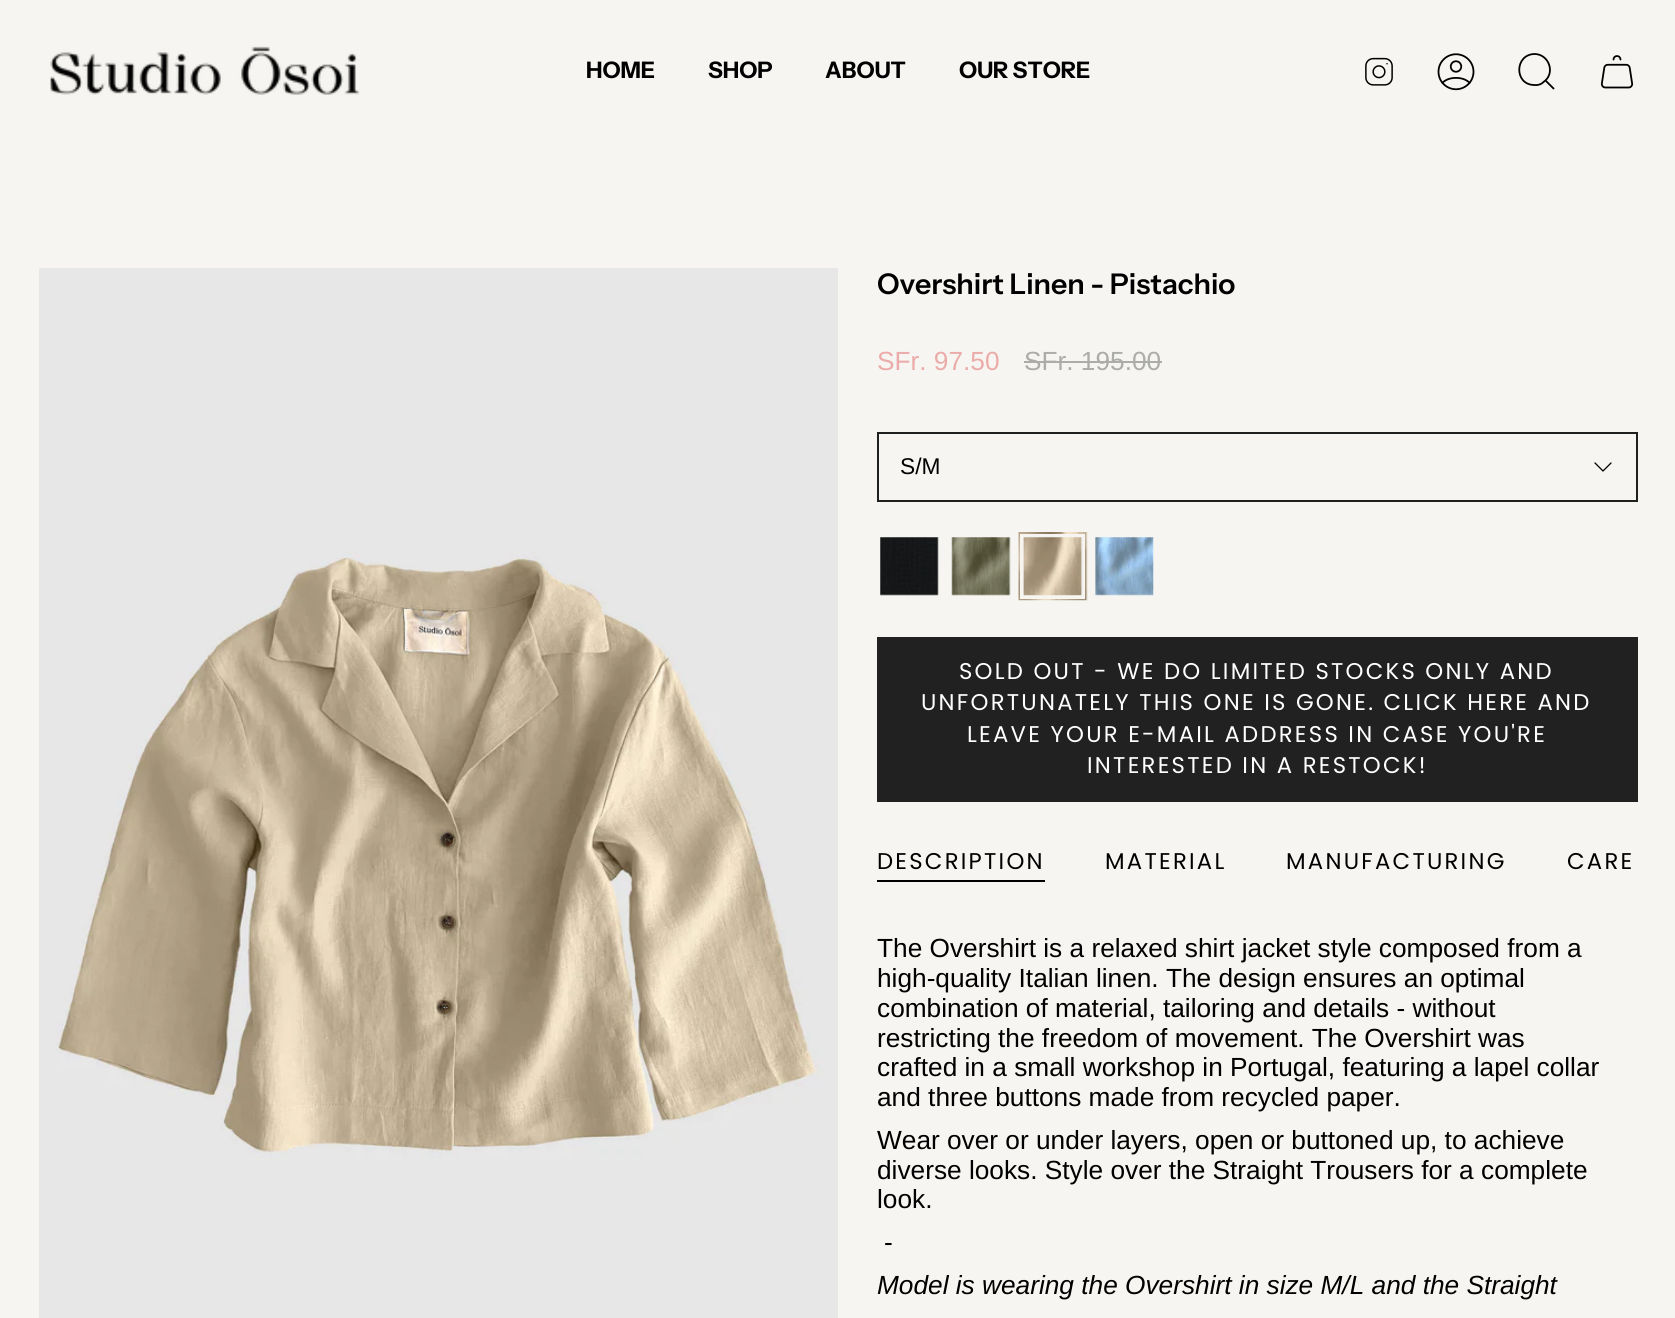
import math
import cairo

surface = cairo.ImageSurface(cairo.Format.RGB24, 1675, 1318)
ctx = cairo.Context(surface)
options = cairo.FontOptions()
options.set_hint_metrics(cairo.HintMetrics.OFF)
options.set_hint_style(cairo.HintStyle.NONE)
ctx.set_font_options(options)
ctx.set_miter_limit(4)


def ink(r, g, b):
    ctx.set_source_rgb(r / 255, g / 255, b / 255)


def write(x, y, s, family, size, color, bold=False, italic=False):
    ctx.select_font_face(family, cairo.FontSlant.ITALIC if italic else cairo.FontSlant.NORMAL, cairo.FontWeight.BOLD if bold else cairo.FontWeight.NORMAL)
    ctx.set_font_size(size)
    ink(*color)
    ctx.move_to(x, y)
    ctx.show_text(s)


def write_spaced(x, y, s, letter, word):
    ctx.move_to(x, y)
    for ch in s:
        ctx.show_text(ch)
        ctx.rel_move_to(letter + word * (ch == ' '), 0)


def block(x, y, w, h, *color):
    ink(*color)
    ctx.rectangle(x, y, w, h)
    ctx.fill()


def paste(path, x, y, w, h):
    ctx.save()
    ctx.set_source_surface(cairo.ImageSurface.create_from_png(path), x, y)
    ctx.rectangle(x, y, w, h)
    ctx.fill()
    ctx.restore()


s1 = dict(family="Instrument Sans", size=22.75, color=(0, 0, 0), bold=True)
s2 = dict(family="Instrument Sans SemiBold", size=28.5, color=(0, 0, 0))
s3 = dict(family="Liberation Sans", size=26.25, color=(235, 172, 169))
s4 = dict(family="Liberation Sans", size=26.25, color=(172, 172, 169))
s5 = dict(family="Liberation Sans", size=22.75, color=(0, 0, 0))
s6 = dict(family="Liberation Sans", size=26.25, color=(0, 0, 0))
s7 = dict(family="Liberation Sans", size=26.25, color=(0, 0, 0), italic=True)

ink(246, 245, 241)
ctx.paint()
paste("pic1.png", 50, 46, 310, 49)
write(586, 78, "HOME", **s1)
write(708, 78, "SHOP", **s1)
write(825, 78, "ABOUT", **s1)
write(959, 78, "OUR STORE", **s1)
paste("pic2.png", 1365, 57, 28, 29)
paste("pic3.png", 1437, 53, 38, 38)
ctx.new_path()
ctx.move_to(1534.5, 54)
ctx.curve_to(1549, 54, 1556, 73.5, 1543.5, 82)
ctx.curve_to(1541, 84.5, 1537.5, 85.5, 1534, 85)
ctx.curve_to(1514, 84.5, 1514.5, 54.5, 1534.5, 54)
ctx.close_path()
ctx.move_to(1545.5, 80.5)
ctx.line_to(1554, 89)
ctx.set_line_width(1.8)
ctx.stroke()
paste("pic4.png", 1600, 55, 34, 34)
paste("pic5.png", 39, 268, 799, 1050)
write(877, 294, "Overshirt Linen - Pistachio", **s2)
write(877, 370, "SFr. 97.50", **s3)
write(1024, 370, "SFr. 195.00", **s4)
block(1024, 361, 138, 2, 172, 172, 169)
ctx.rectangle(878, 433, 759, 68)
ink(31, 33, 33)
ctx.set_line_width(2)
ctx.stroke()
write(900, 474, "S/M", **s5)
ctx.new_path()
ctx.move_to(1595, 463)
ctx.line_to(1603, 471)
ctx.line_to(1611, 463)
ctx.set_line_width(1.3)
ctx.set_line_cap(cairo.LineCap.ROUND)
ctx.set_line_join(cairo.LineJoin.ROUND)
ctx.stroke()
paste("pic6.png", 880, 537, 59, 59)
paste("pic7.png", 951, 537, 60, 59)
paste("pic9.png", 1018, 532, 70, 69)
ctx.rectangle(1022, 536, 61, 61)
ink(246, 245, 241)
ctx.set_line_width(4)
ctx.set_line_cap(cairo.LineCap.BUTT)
ctx.set_line_join(cairo.LineJoin.MITER)
ctx.stroke()
paste("pic8.png", 1023, 537, 60, 59)
paste("pic10.png", 1095, 537, 59, 59)
block(877, 637, 761, 165, 33, 33, 33)
ctx.select_font_face("Poppins")
ink(255, 255, 255)
write_spaced(959, 679, "SOLD OUT - WE DO LIMITED STOCKS ONLY AND", 2.25, 0)
write_spaced(921, 710, "UNFORTUNATELY THIS ONE IS GONE. CLICK HERE AND", 2.25, 0)
write_spaced(967, 742, "LEAVE YOUR E-MAIL ADDRESS IN CASE YOU'RE", 2.25, 0)
write_spaced(1087, 773, "INTERESTED IN A RESTOCK!", 2.25, 0)
ink(0, 0, 0)
write_spaced(877, 869, "DESCRIPTION", 2.25, 0)
block(877, 880, 168, 2, 0, 0, 0)
write_spaced(1105, 869, "MATERIAL", 2.25, 0)
write_spaced(1286, 869, "MANUFACTURING", 2.25, 0)
write_spaced(1567, 869, "CARE", 2.25, 0)
write(877, 957, "The Overshirt is a relaxed shirt jacket style composed from a", **s6)
write(877, 987, "high-quality Italian linen. The design ensures an optimal", **s6)
write(877, 1017, "combination of material, tailoring and details - without", **s6)
write(877, 1047, "restricting the freedom of movement. The Overshirt was", **s6)
write(877, 1076, "crafted in a small workshop in Portugal, featuring a lapel collar", **s6)
write(877, 1106, "and three buttons made from recycled paper.", **s6)
write(877, 1149, "Wear over or under layers, open or buttoned up, to achieve", **s6)
write(877, 1179, "diverse looks. Style over the Straight Trousers for a complete", **s6)
write(877, 1208, "look.", **s6)
write(884, 1251, "-", **s6)
write(877, 1294, "Model is wearing the Overshirt in size M/L and the Straight", **s7)
surface.write_to_png("screenshot.png")
